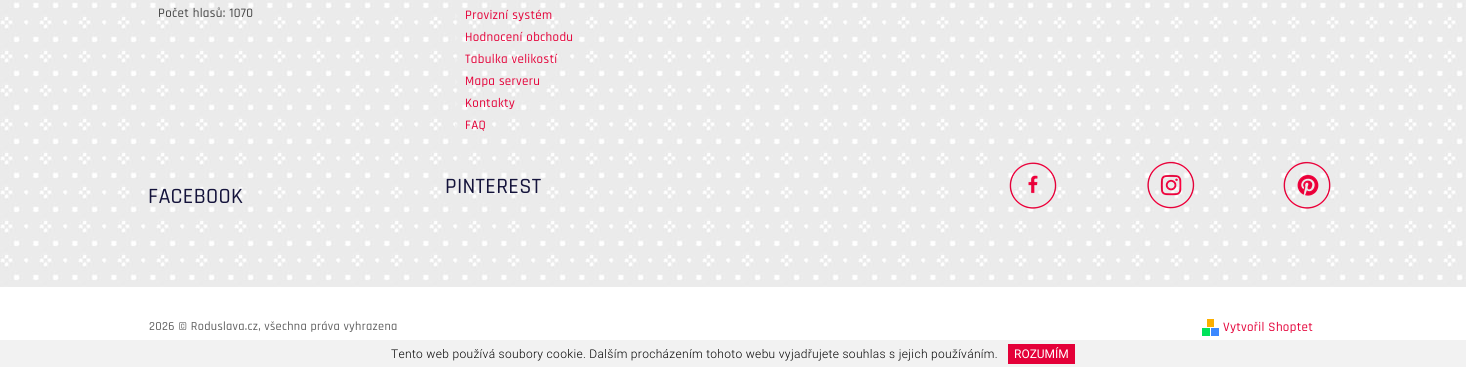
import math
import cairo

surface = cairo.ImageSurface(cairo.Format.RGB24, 1466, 367)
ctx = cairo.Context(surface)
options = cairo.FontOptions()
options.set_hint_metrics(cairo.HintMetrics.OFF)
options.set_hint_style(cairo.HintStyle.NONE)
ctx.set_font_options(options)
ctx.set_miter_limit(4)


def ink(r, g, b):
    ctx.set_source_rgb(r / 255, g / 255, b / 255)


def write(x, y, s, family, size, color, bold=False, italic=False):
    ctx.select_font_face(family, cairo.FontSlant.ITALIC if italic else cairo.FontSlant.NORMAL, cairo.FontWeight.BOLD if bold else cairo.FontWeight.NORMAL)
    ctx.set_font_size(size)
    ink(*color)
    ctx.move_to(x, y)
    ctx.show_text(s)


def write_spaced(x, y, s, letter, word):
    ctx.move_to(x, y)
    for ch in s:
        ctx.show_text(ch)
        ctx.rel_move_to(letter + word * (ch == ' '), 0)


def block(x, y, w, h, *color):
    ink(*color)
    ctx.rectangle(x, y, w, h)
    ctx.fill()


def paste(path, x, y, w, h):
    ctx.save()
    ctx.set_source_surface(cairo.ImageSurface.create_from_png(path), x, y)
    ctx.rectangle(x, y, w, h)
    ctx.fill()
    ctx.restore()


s1 = dict(family="Roboto", size=12, color=(255, 255, 255))

ink(255, 255, 255)
ctx.paint()
paste("pic1.png", 0, 0, 1466, 287)
ctx.select_font_face("Rajdhani Medium")
ctx.set_font_size(13)
ink(68, 68, 68)
write_spaced(158, 17, "Počet hlasů: 1070", 0.32, 0)
ink(239, 239, 239)
ctx.new_path()
ctx.move_to(455, 19)
ctx.line_to(455, 13)
ctx.line_to(458, 16)
ctx.close_path()
ctx.fill()
ink(228, 0, 56)
write_spaced(465, 19, "Provizní systém", 0.32, 0)
ink(239, 239, 239)
ctx.new_path()
ctx.move_to(455, 41)
ctx.line_to(455, 35)
ctx.line_to(458, 38)
ctx.close_path()
ctx.fill()
ink(228, 0, 56)
write_spaced(465, 41, "Hodnocení obchodu", 0.32, 0)
ink(239, 239, 239)
ctx.new_path()
ctx.move_to(455, 63)
ctx.line_to(455, 57)
ctx.line_to(458, 60)
ctx.close_path()
ctx.fill()
ink(228, 0, 56)
write_spaced(465, 63, "Tabulka velikostí", 0.32, 0)
ink(239, 239, 239)
ctx.new_path()
ctx.move_to(455, 85)
ctx.line_to(455, 79)
ctx.line_to(458, 82)
ctx.close_path()
ctx.fill()
ink(228, 0, 56)
write_spaced(465, 85, "Mapa serveru", 0.32, 0)
ink(239, 239, 239)
ctx.new_path()
ctx.move_to(455, 107)
ctx.line_to(455, 101)
ctx.line_to(458, 104)
ctx.close_path()
ctx.fill()
ink(228, 0, 56)
write_spaced(465, 107, "Kontakty", 0.32, 0)
ink(239, 239, 239)
ctx.new_path()
ctx.move_to(455, 129)
ctx.line_to(455, 123)
ctx.line_to(458, 126)
ctx.close_path()
ctx.fill()
ink(228, 0, 56)
write_spaced(465, 129, "FAQ", 0.32, 0)
ctx.set_font_size(22)
ink(20, 19, 59)
write_spaced(445, 193, "PINTEREST", 0.32, 0)
write_spaced(148, 203, "FACEBOOK", 0.32, 0)
paste("pic2.png", 1009, 162, 48, 47)
paste("pic3.png", 1147, 161, 48, 48)
paste("pic4.png", 1283, 161, 48, 48)
ctx.set_font_size(12.3)
ink(94, 94, 94)
write_spaced(149, 330, "2026 © Roduslava.cz, všechna práva vyhrazena", 0.32, 0)
block(1207, 319, 7, 8, 252, 175, 0)
block(1202, 328, 8, 8, 0, 226, 90)
block(1211, 328, 8, 8, 59, 136, 255)
ctx.set_font_size(13)
ink(228, 0, 56)
write_spaced(1223, 331, "Vytvořil Shoptet", 0.32, 0)
block(0, 340, 1466, 27, 242, 242, 242)
ctx.select_font_face("Roboto Light")
ctx.set_font_size(12)
ink(0, 0, 0)
write_spaced(391, 358, "Tento web používá soubory cookie. Dalším procházením tohoto webu vyjadřujete souhlas s jejich používáním.", 0.32, 0)
block(1008, 344, 67, 20, 228, 0, 56)
write(1014, 358, "ROZUMÍM", **s1)
surface.write_to_png("screenshot.png")
